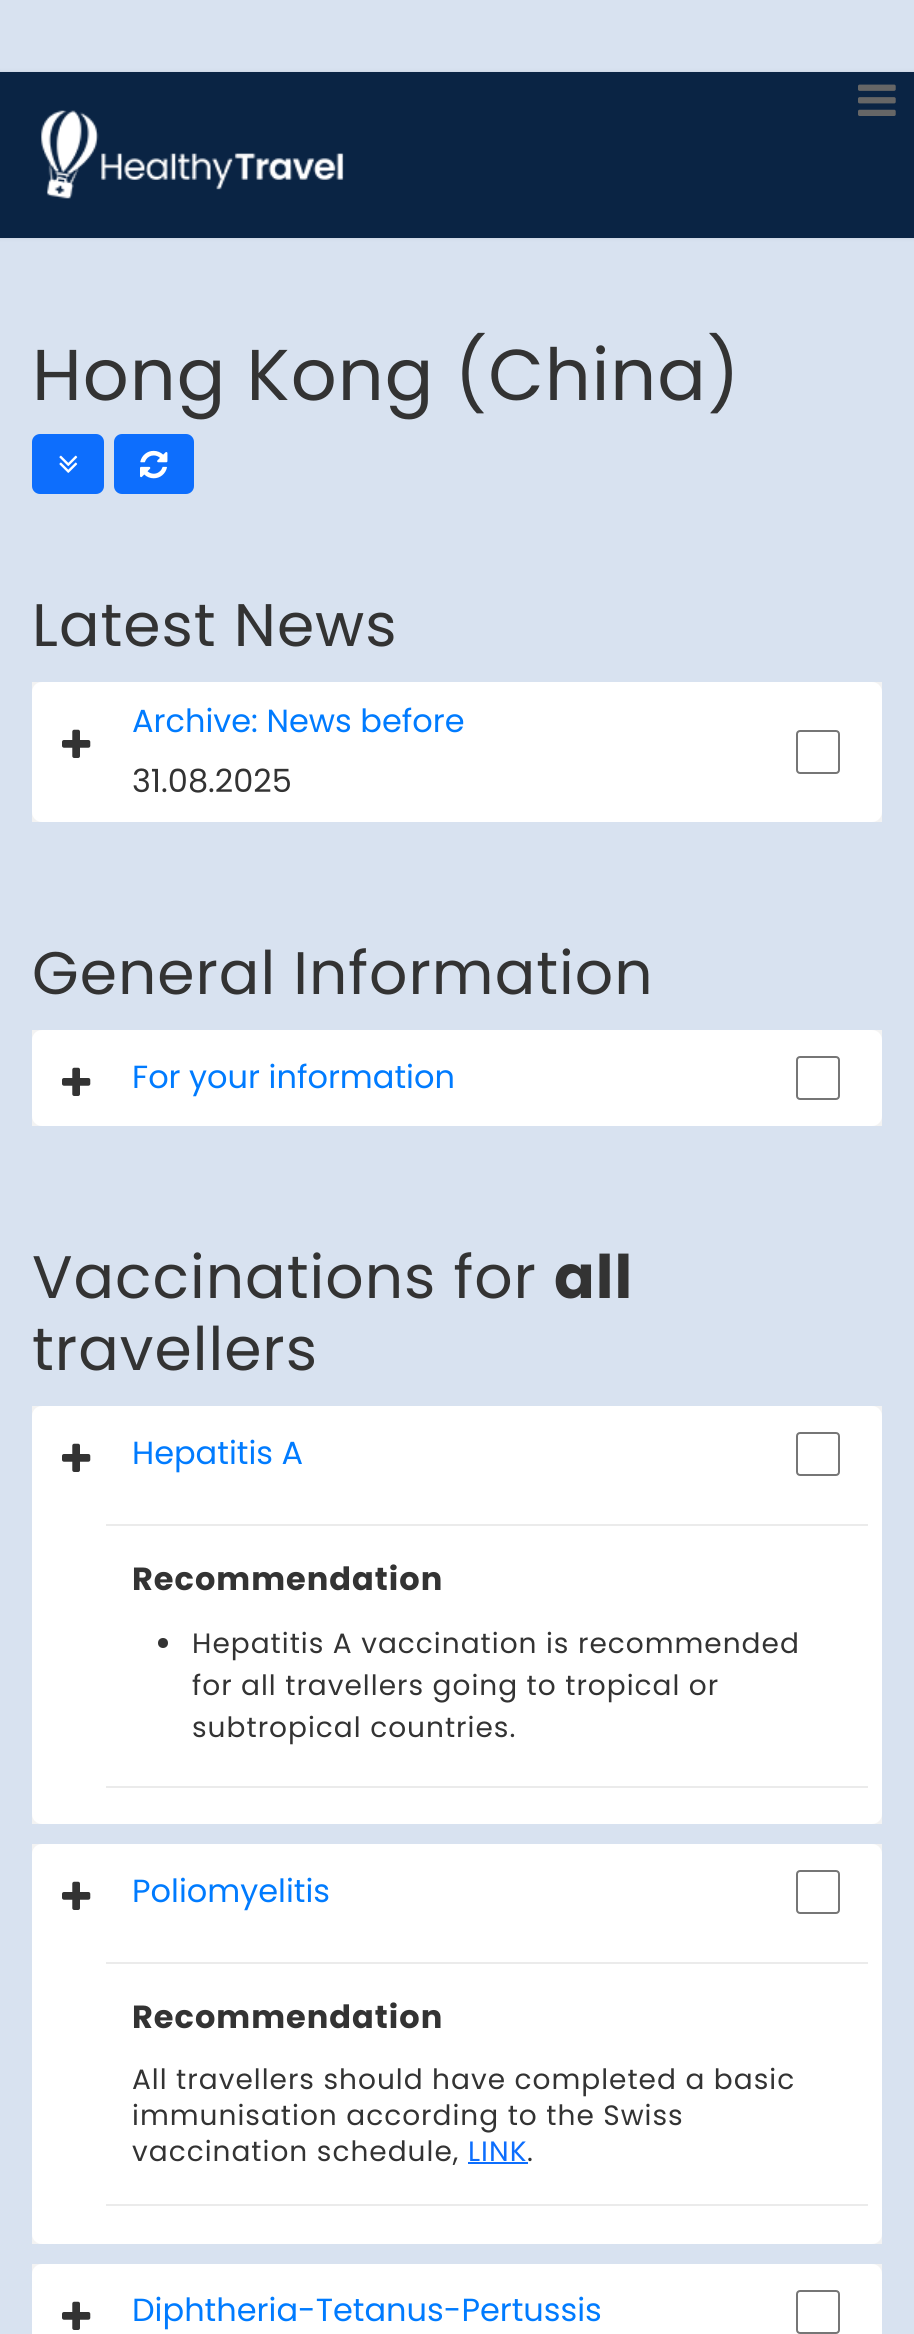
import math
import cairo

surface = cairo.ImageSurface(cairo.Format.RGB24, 914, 2334)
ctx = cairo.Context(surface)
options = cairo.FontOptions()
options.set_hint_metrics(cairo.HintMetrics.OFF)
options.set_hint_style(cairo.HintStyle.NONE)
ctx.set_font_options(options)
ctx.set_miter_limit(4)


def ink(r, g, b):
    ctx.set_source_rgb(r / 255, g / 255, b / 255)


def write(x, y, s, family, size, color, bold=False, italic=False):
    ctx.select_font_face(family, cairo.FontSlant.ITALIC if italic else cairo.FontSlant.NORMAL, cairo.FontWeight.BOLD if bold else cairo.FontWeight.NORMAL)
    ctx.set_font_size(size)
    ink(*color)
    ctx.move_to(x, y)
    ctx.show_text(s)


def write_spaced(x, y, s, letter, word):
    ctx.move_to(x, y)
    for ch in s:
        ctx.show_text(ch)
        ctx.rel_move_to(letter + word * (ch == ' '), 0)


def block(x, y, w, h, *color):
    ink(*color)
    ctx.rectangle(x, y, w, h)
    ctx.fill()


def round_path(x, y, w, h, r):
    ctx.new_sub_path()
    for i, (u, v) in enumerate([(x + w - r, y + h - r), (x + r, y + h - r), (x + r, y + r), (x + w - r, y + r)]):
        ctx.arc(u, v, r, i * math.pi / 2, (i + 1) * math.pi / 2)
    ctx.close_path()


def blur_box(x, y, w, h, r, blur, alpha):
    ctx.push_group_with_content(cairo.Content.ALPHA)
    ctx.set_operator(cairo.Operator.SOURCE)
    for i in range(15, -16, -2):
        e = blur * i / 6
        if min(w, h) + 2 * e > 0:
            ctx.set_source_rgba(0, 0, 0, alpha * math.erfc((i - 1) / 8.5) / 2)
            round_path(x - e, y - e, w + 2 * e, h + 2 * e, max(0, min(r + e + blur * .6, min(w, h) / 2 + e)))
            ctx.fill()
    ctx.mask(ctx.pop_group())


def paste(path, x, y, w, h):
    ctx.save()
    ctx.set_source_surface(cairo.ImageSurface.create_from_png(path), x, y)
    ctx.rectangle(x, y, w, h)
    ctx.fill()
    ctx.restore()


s1 = dict(family="Poppins", size=32, color=(0, 123, 255))
s2 = dict(family="Poppins", size=32, color=(51, 51, 51))

ink(216, 226, 240)
ctx.paint()
ink(0, 0, 0)
blur_box(0, 72, 914, 166, 0, 2, 0.1)
block(0, 72, 914, 166, 10, 36, 68)
paste("pic1.png", 858, 84, 38, 32)
paste("pic2.png", 41, 110, 303, 89)
ctx.select_font_face("Poppins")
ctx.set_font_size(71.9)
ink(51, 51, 51)
write_spaced(32, 400, "Hong Kong (China)", 1, 0)
ink(13, 110, 253)
round_path(33, 435, 70, 58, 7)
ctx.fill_preserve()
ctx.stroke()
paste("pic3.png", 59, 455, 19, 18)
round_path(115, 435, 78, 58, 7)
ctx.fill_preserve()
ctx.stroke()
paste("pic4.png", 140, 450, 28, 29)
ctx.set_font_size(60)
ink(51, 51, 51)
write_spaced(32, 646, "Latest News", 1, 0)
block(32, 682, 850, 140, 243, 243, 243)
ink(255, 255, 255)
round_path(32, 682, 850, 140, 10)
ctx.fill()
write(132, 732, "Archive: News before", **s1)
paste("pic5.png", 62, 729, 29, 29)
write(132, 792, "31.08.2025", **s2)
round_path(797, 731, 42, 42, 3)
ink(118, 118, 118)
ctx.stroke()
ctx.set_font_size(60)
ink(51, 51, 51)
write_spaced(32, 994, "General Information", 1, 0)
block(32, 1030, 850, 96, 243, 243, 243)
ink(255, 255, 255)
round_path(32, 1030, 850, 96, 10)
ctx.fill()
paste("pic5.png", 62, 1067, 29, 29)
write(132, 1088, "For your information", **s1)
round_path(797, 1057, 42, 42, 3)
ink(118, 118, 118)
ctx.stroke()
ctx.set_font_size(60)
ink(51, 51, 51)
write_spaced(32, 1298, "Vaccinations for", 1, 0)
ctx.select_font_face("Poppins", cairo.FontSlant.NORMAL, cairo.FontWeight.BOLD)
write_spaced(554, 1298, "all", 1, 0)
ctx.select_font_face("Poppins")
write_spaced(32, 1370, "travellers", 1, 0)
block(32, 1406, 850, 418, 243, 243, 243)
ink(255, 255, 255)
round_path(32, 1406, 850, 418, 10)
ctx.fill()
paste("pic5.png", 62, 1443, 29, 29)
write(132, 1464, "Hepatitis A", **s1)
round_path(797, 1433, 42, 42, 3)
ink(118, 118, 118)
ctx.stroke()
block(106, 1524, 762, 2, 235, 235, 235)
ctx.select_font_face("Poppins", cairo.FontSlant.NORMAL, cairo.FontWeight.BOLD)
ink(51, 51, 51)
write_spaced(132, 1590, "Recommendation", 1, 0)
ctx.new_path()
ctx.arc(163, 1643, 5, 0, 2 * math.pi)
ctx.fill()
ctx.select_font_face("Poppins")
ctx.set_font_size(28)
write_spaced(192, 1653, "Hepatitis A vaccination is recommended", 1, 0)
write_spaced(192, 1695, "for all travellers going to tropical or", 1, 0)
write_spaced(192, 1737, "subtropical countries.", 1, 0)
block(106, 1786, 762, 2, 235, 235, 235)
block(32, 1844, 850, 400, 243, 243, 243)
ink(255, 255, 255)
round_path(32, 1844, 850, 400, 10)
ctx.fill()
paste("pic5.png", 62, 1881, 29, 29)
write(132, 1902, "Poliomyelitis", **s1)
round_path(797, 1871, 42, 42, 3)
ink(118, 118, 118)
ctx.stroke()
block(106, 1962, 762, 2, 235, 235, 235)
ctx.select_font_face("Poppins", cairo.FontSlant.NORMAL, cairo.FontWeight.BOLD)
ink(51, 51, 51)
write_spaced(132, 2028, "Recommendation", 1, 0)
ctx.select_font_face("Poppins")
ctx.set_font_size(28)
write_spaced(132, 2089, "All travellers should have completed a basic", 1, 0)
write_spaced(132, 2125, "immunisation according to the Swiss", 1, 0)
write_spaced(132, 2161, "vaccination schedule,", 1, 0)
ink(13, 110, 253)
write_spaced(468, 2161, "LINK", 1, 0)
block(468, 2162, 60, 2, 13, 110, 253)
ink(51, 51, 51)
write_spaced(527, 2161, ".", 1, 0)
block(106, 2204, 762, 2, 235, 235, 235)
block(32, 2264, 850, 10, 243, 243, 243)
ink(255, 255, 255)
ctx.new_path()
ctx.move_to(42, 2264)
ctx.line_to(872, 2264)
ctx.curve_to(877.5, 2264, 882, 2268.5, 882, 2274)
ctx.line_to(882, 2334)
ctx.line_to(32, 2334)
ctx.line_to(32, 2274)
ctx.curve_to(32, 2268.5, 36.5, 2264, 42, 2264)
ctx.close_path()
ctx.fill()
paste("pic5.png", 62, 2301, 29, 29)
write(132, 2321, "Diphtheria-Tetanus-Pertussis", **s1)
round_path(797, 2291, 42, 42, 3)
ink(118, 118, 118)
ctx.stroke()
surface.write_to_png("screenshot.png")
